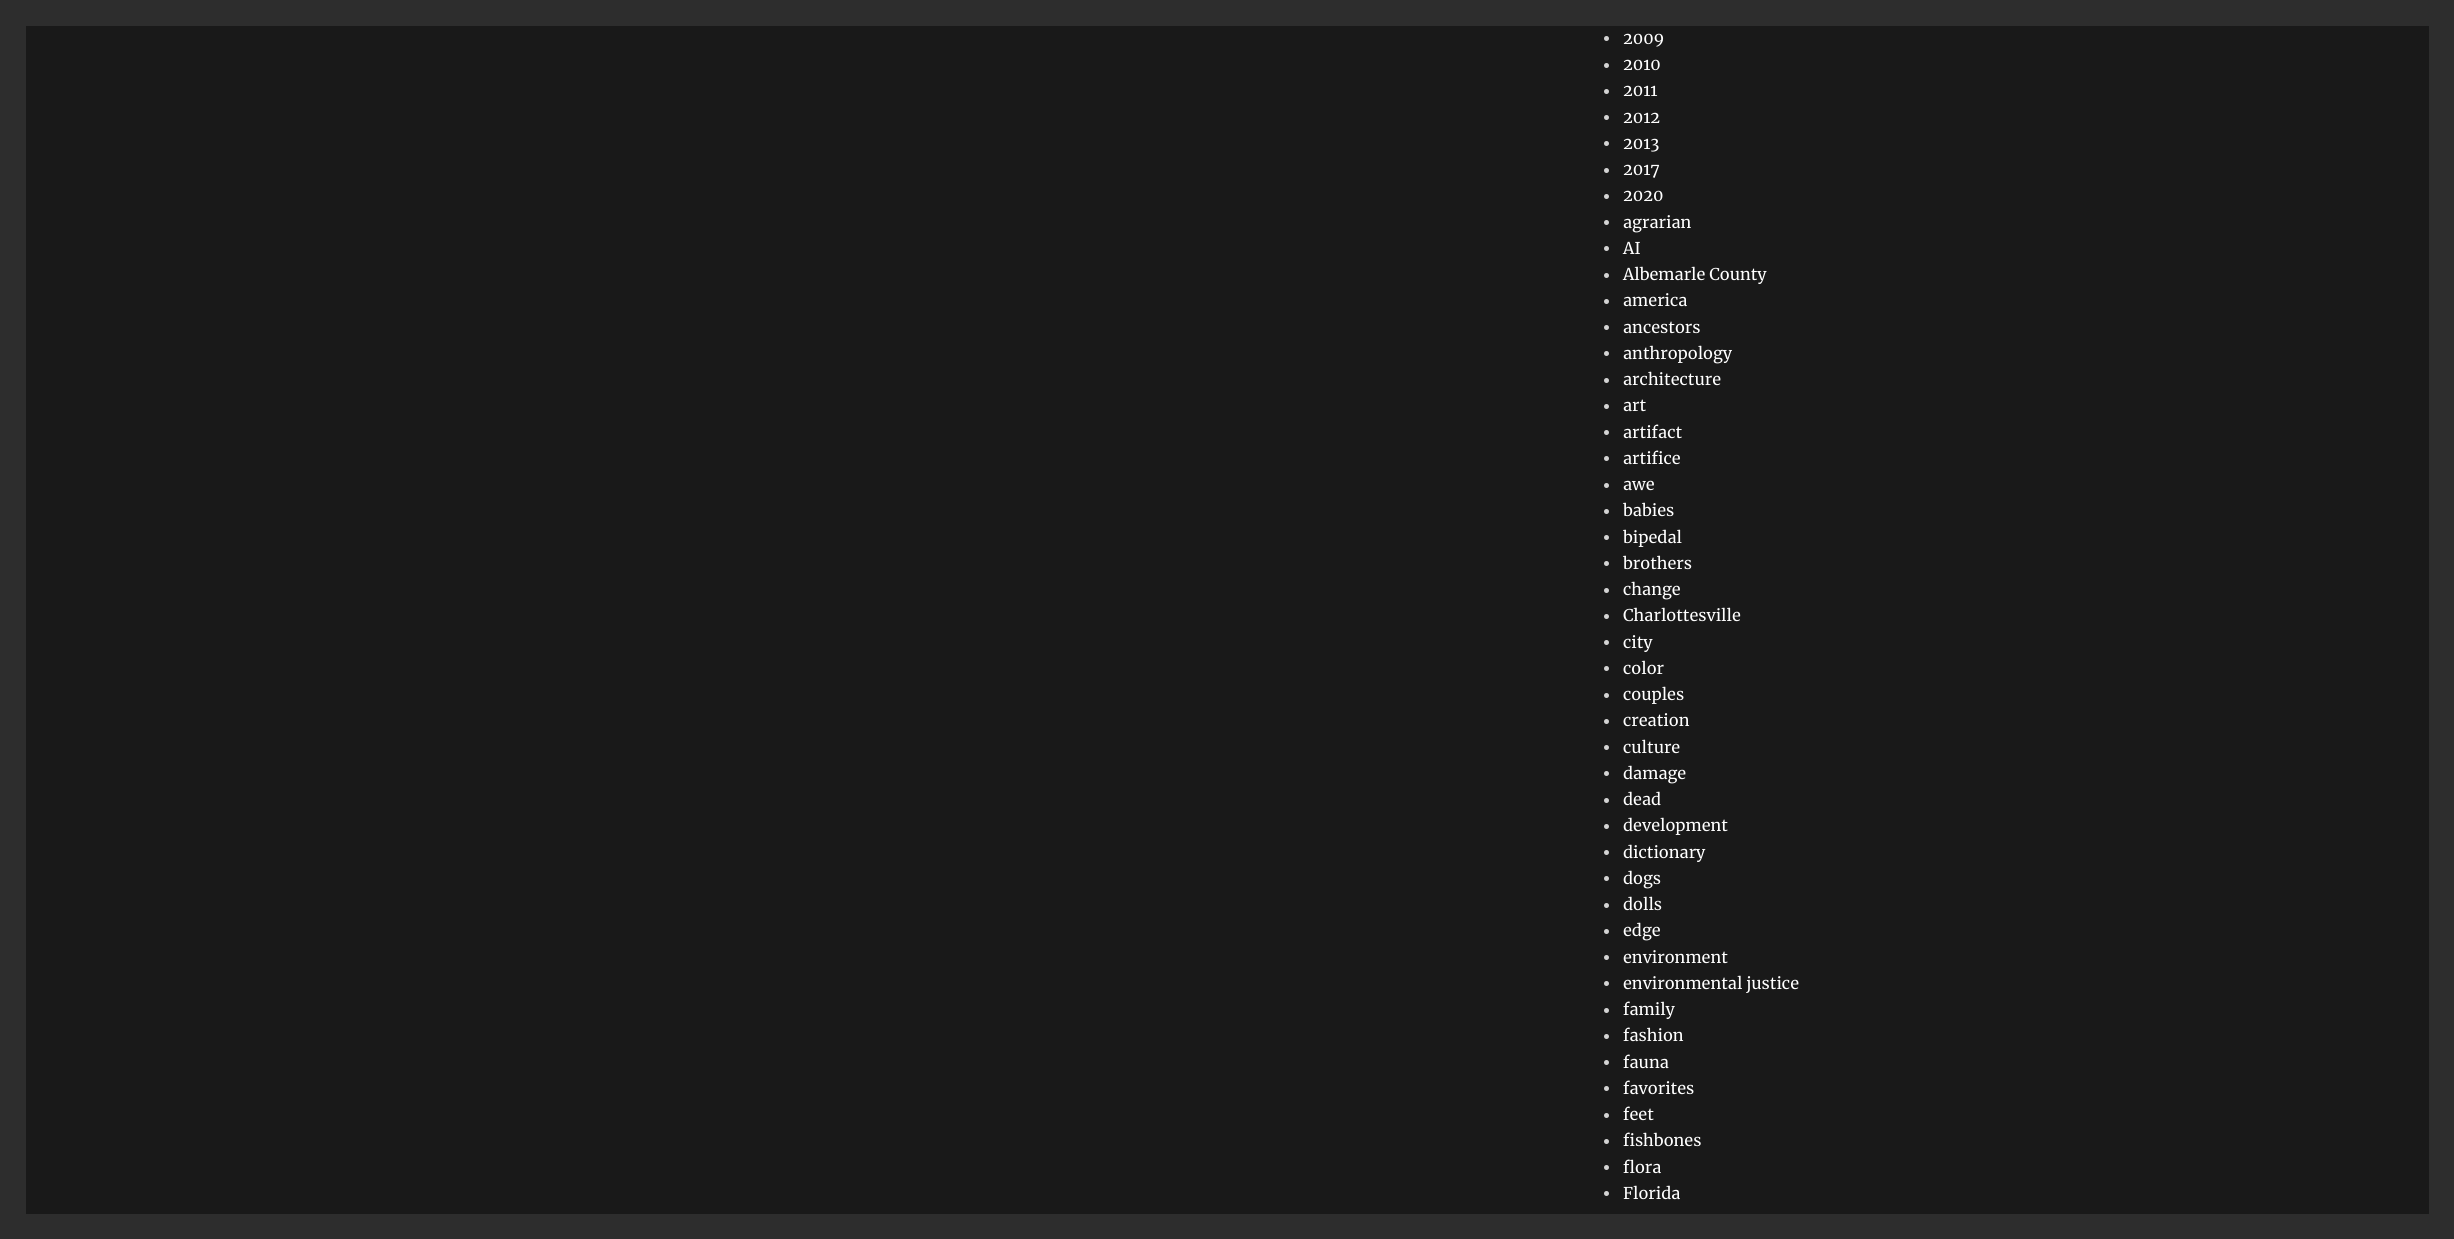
import math
import cairo

surface = cairo.ImageSurface(cairo.Format.RGB24, 2454, 1239)
ctx = cairo.Context(surface)
options = cairo.FontOptions()
options.set_hint_metrics(cairo.HintMetrics.OFF)
options.set_hint_style(cairo.HintStyle.NONE)
ctx.set_font_options(options)
ctx.set_miter_limit(4)


def ink(r, g, b):
    ctx.set_source_rgb(r / 255, g / 255, b / 255)


def write(x, y, s, family, size, color, bold=False, italic=False):
    ctx.select_font_face(family, cairo.FontSlant.ITALIC if italic else cairo.FontSlant.NORMAL, cairo.FontWeight.BOLD if bold else cairo.FontWeight.NORMAL)
    ctx.set_font_size(size)
    ink(*color)
    ctx.move_to(x, y)
    ctx.show_text(s)


def block(x, y, w, h, *color):
    ink(*color)
    ctx.rectangle(x, y, w, h)
    ctx.fill()


s1 = dict(family="Merriweather", size=16.25, color=(255, 255, 255))

ink(45, 45, 45)
ctx.paint()
block(26, 26, 2403, 1188, 25, 25, 25)
ink(211, 211, 211)
ctx.arc(1606.5, 38.5, 2.5, 0, 2 * math.pi)
ctx.fill()
write(1623, 44, "2009", **s1)
ink(211, 211, 211)
ctx.new_path()
ctx.arc(1606.5, 65.5, 2.5, 0, 2 * math.pi)
ctx.fill()
write(1623, 70, "2010", **s1)
ink(211, 211, 211)
ctx.new_path()
ctx.arc(1606.5, 91.5, 2.5, 0, 2 * math.pi)
ctx.fill()
write(1623, 96, "2011", **s1)
ink(211, 211, 211)
ctx.new_path()
ctx.arc(1606.5, 117.5, 2.5, 0, 2 * math.pi)
ctx.fill()
write(1623, 123, "2012", **s1)
ink(211, 211, 211)
ctx.new_path()
ctx.arc(1606.5, 143.5, 2.5, 0, 2 * math.pi)
ctx.fill()
write(1623, 149, "2013", **s1)
ink(211, 211, 211)
ctx.new_path()
ctx.arc(1606.5, 170.5, 2.5, 0, 2 * math.pi)
ctx.fill()
write(1623, 175, "2017", **s1)
ink(211, 211, 211)
ctx.new_path()
ctx.arc(1606.5, 196.5, 2.5, 0, 2 * math.pi)
ctx.fill()
write(1623, 201, "2020", **s1)
ink(211, 211, 211)
ctx.new_path()
ctx.arc(1606.5, 222.5, 2.5, 0, 2 * math.pi)
ctx.fill()
write(1623, 228, "agrarian", **s1)
ink(211, 211, 211)
ctx.new_path()
ctx.arc(1606.5, 248.5, 2.5, 0, 2 * math.pi)
ctx.fill()
write(1623, 254, "AI", **s1)
ink(211, 211, 211)
ctx.new_path()
ctx.arc(1606.5, 275.5, 2.5, 0, 2 * math.pi)
ctx.fill()
write(1623, 280, "Albemarle County", **s1)
ink(211, 211, 211)
ctx.new_path()
ctx.arc(1606.5, 301.5, 2.5, 0, 2 * math.pi)
ctx.fill()
write(1623, 306, "america", **s1)
ink(211, 211, 211)
ctx.new_path()
ctx.arc(1606.5, 327.5, 2.5, 0, 2 * math.pi)
ctx.fill()
write(1623, 333, "ancestors", **s1)
ink(211, 211, 211)
ctx.new_path()
ctx.arc(1606.5, 353.5, 2.5, 0, 2 * math.pi)
ctx.fill()
write(1623, 359, "anthropology", **s1)
ink(211, 211, 211)
ctx.new_path()
ctx.arc(1606.5, 380.5, 2.5, 0, 2 * math.pi)
ctx.fill()
write(1623, 385, "architecture", **s1)
ink(211, 211, 211)
ctx.new_path()
ctx.arc(1606.5, 406.5, 2.5, 0, 2 * math.pi)
ctx.fill()
write(1623, 411, "art", **s1)
ink(211, 211, 211)
ctx.new_path()
ctx.arc(1606.5, 432.5, 2.5, 0, 2 * math.pi)
ctx.fill()
write(1623, 438, "artifact", **s1)
ink(211, 211, 211)
ctx.new_path()
ctx.arc(1606.5, 458.5, 2.5, 0, 2 * math.pi)
ctx.fill()
write(1623, 464, "artifice", **s1)
ink(211, 211, 211)
ctx.new_path()
ctx.arc(1606.5, 485.5, 2.5, 0, 2 * math.pi)
ctx.fill()
write(1623, 490, "awe", **s1)
ink(211, 211, 211)
ctx.new_path()
ctx.arc(1606.5, 511.5, 2.5, 0, 2 * math.pi)
ctx.fill()
write(1623, 516, "babies", **s1)
ink(211, 211, 211)
ctx.new_path()
ctx.arc(1606.5, 537.5, 2.5, 0, 2 * math.pi)
ctx.fill()
write(1623, 543, "bipedal", **s1)
ink(211, 211, 211)
ctx.new_path()
ctx.arc(1606.5, 563.5, 2.5, 0, 2 * math.pi)
ctx.fill()
write(1623, 569, "brothers", **s1)
ink(211, 211, 211)
ctx.new_path()
ctx.arc(1606.5, 590.5, 2.5, 0, 2 * math.pi)
ctx.fill()
write(1623, 595, "change", **s1)
ink(211, 211, 211)
ctx.new_path()
ctx.arc(1606.5, 616.5, 2.5, 0, 2 * math.pi)
ctx.fill()
write(1623, 621, "Charlottesville", **s1)
ink(211, 211, 211)
ctx.new_path()
ctx.arc(1606.5, 642.5, 2.5, 0, 2 * math.pi)
ctx.fill()
write(1623, 648, "city", **s1)
ink(211, 211, 211)
ctx.new_path()
ctx.arc(1606.5, 668.5, 2.5, 0, 2 * math.pi)
ctx.fill()
write(1623, 674, "color", **s1)
ink(211, 211, 211)
ctx.new_path()
ctx.arc(1606.5, 695.5, 2.5, 0, 2 * math.pi)
ctx.fill()
write(1623, 700, "couples", **s1)
ink(211, 211, 211)
ctx.new_path()
ctx.arc(1606.5, 721.5, 2.5, 0, 2 * math.pi)
ctx.fill()
write(1623, 726, "creation", **s1)
ink(211, 211, 211)
ctx.new_path()
ctx.arc(1606.5, 747.5, 2.5, 0, 2 * math.pi)
ctx.fill()
write(1623, 753, "culture", **s1)
ink(211, 211, 211)
ctx.new_path()
ctx.arc(1606.5, 773.5, 2.5, 0, 2 * math.pi)
ctx.fill()
write(1623, 779, "damage", **s1)
ink(211, 211, 211)
ctx.new_path()
ctx.arc(1606.5, 800.5, 2.5, 0, 2 * math.pi)
ctx.fill()
write(1623, 805, "dead", **s1)
ink(211, 211, 211)
ctx.new_path()
ctx.arc(1606.5, 826.5, 2.5, 0, 2 * math.pi)
ctx.fill()
write(1623, 831, "development", **s1)
ink(211, 211, 211)
ctx.new_path()
ctx.arc(1606.5, 852.5, 2.5, 0, 2 * math.pi)
ctx.fill()
write(1623, 858, "dictionary", **s1)
ink(211, 211, 211)
ctx.new_path()
ctx.arc(1606.5, 878.5, 2.5, 0, 2 * math.pi)
ctx.fill()
write(1623, 884, "dogs", **s1)
ink(211, 211, 211)
ctx.new_path()
ctx.arc(1606.5, 905.5, 2.5, 0, 2 * math.pi)
ctx.fill()
write(1623, 910, "dolls", **s1)
ink(211, 211, 211)
ctx.new_path()
ctx.arc(1606.5, 931.5, 2.5, 0, 2 * math.pi)
ctx.fill()
write(1623, 936, "edge", **s1)
ink(211, 211, 211)
ctx.new_path()
ctx.arc(1606.5, 957.5, 2.5, 0, 2 * math.pi)
ctx.fill()
write(1623, 963, "environment", **s1)
ink(211, 211, 211)
ctx.new_path()
ctx.arc(1606.5, 983.5, 2.5, 0, 2 * math.pi)
ctx.fill()
write(1623, 989, "environmental justice", **s1)
ink(211, 211, 211)
ctx.new_path()
ctx.arc(1606.5, 1010.5, 2.5, 0, 2 * math.pi)
ctx.fill()
write(1623, 1015, "family", **s1)
ink(211, 211, 211)
ctx.new_path()
ctx.arc(1606.5, 1036.5, 2.5, 0, 2 * math.pi)
ctx.fill()
write(1623, 1041, "fashion", **s1)
ink(211, 211, 211)
ctx.new_path()
ctx.arc(1606.5, 1062.5, 2.5, 0, 2 * math.pi)
ctx.fill()
write(1623, 1068, "fauna", **s1)
ink(211, 211, 211)
ctx.new_path()
ctx.arc(1606.5, 1088.5, 2.5, 0, 2 * math.pi)
ctx.fill()
write(1623, 1094, "favorites", **s1)
ink(211, 211, 211)
ctx.new_path()
ctx.arc(1606.5, 1115.5, 2.5, 0, 2 * math.pi)
ctx.fill()
write(1623, 1120, "feet", **s1)
ink(211, 211, 211)
ctx.new_path()
ctx.arc(1606.5, 1141.5, 2.5, 0, 2 * math.pi)
ctx.fill()
write(1623, 1146, "fishbones", **s1)
ink(211, 211, 211)
ctx.new_path()
ctx.arc(1606.5, 1167.5, 2.5, 0, 2 * math.pi)
ctx.fill()
write(1623, 1173, "flora", **s1)
ink(211, 211, 211)
ctx.new_path()
ctx.arc(1606.5, 1193.5, 2.5, 0, 2 * math.pi)
ctx.fill()
write(1623, 1199, "Florida", **s1)
surface.write_to_png("screenshot.png")
